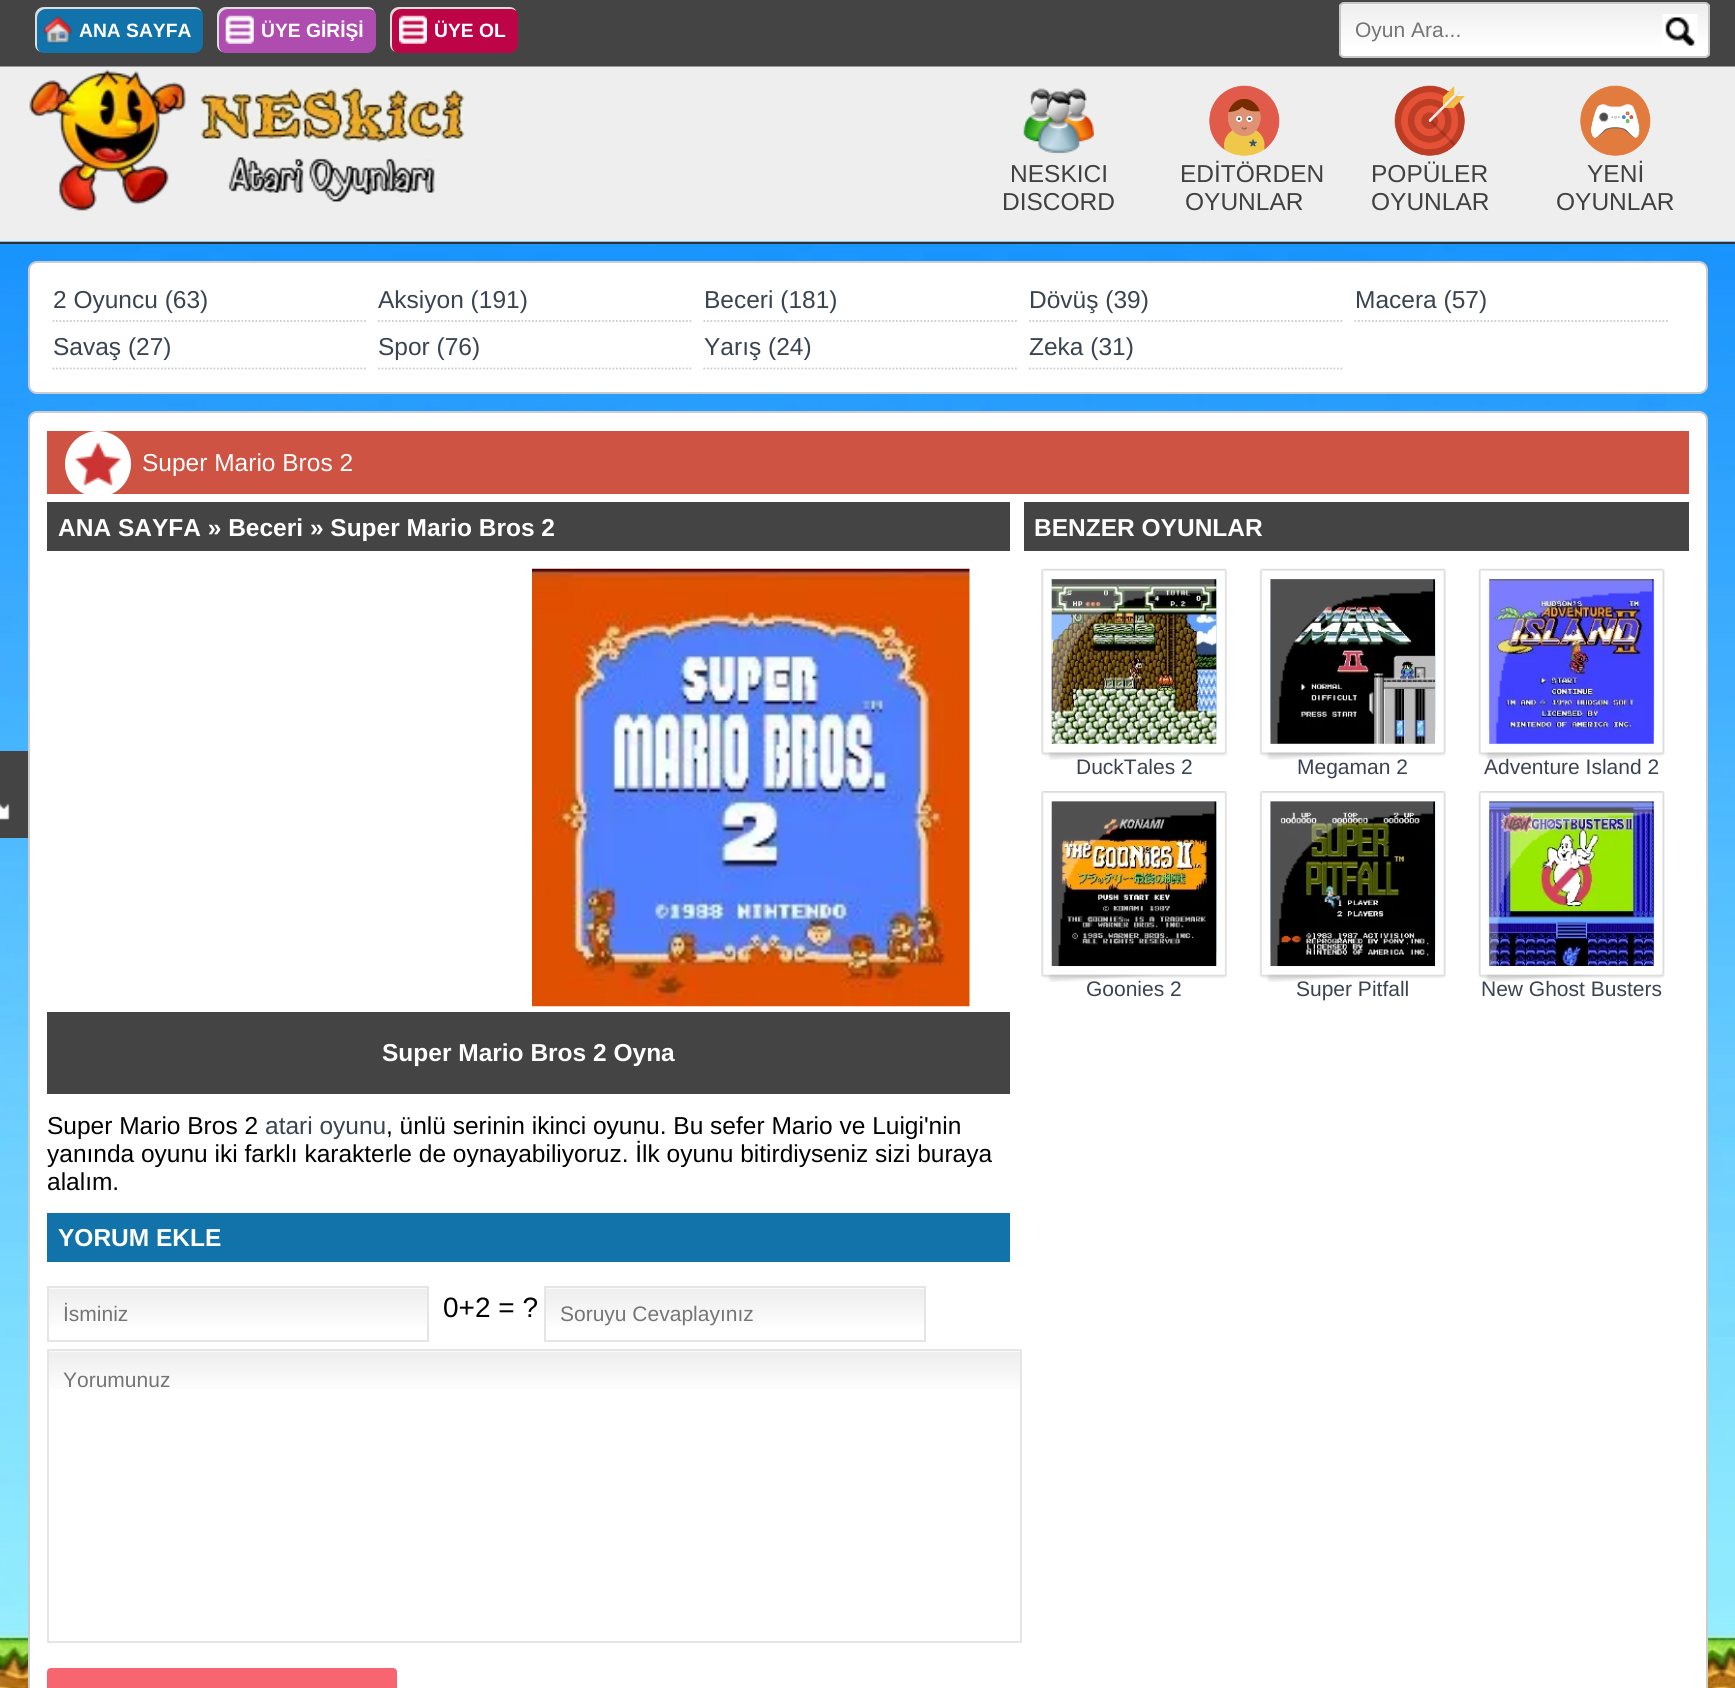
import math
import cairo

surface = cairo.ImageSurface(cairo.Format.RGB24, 1735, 1688)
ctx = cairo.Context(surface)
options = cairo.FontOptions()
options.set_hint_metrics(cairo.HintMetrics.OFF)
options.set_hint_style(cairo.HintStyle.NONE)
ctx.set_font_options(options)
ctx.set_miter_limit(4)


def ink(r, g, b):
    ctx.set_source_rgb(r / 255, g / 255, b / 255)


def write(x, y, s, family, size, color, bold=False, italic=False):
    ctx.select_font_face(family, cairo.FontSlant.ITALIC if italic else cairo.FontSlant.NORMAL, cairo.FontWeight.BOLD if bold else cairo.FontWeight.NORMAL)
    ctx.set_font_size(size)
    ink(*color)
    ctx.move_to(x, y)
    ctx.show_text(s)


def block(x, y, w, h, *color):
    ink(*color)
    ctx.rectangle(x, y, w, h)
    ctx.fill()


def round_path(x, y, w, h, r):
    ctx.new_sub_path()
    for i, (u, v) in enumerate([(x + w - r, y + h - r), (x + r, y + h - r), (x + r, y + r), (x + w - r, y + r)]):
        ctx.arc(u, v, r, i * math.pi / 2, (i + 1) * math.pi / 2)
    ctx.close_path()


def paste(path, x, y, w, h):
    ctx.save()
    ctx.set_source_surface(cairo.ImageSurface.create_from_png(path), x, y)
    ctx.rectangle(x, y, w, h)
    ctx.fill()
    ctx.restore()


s1 = dict(family="Liberation Sans", size=19.25, color=(255, 255, 255), bold=True)
s2 = dict(family="Liberation Sans", size=21, color=(117, 117, 117))
s3 = dict(family="Liberation Sans", size=24.5, color=(65, 65, 65))
s4 = dict(family="Liberation Sans", size=24.5, color=(58, 68, 80))
s5 = dict(family="Liberation Sans", size=24.5, color=(255, 255, 255))
s6 = dict(family="Liberation Sans", size=24.5, color=(255, 255, 255), bold=True)
s7 = dict(family="Liberation Sans", size=24.5, color=(0, 0, 0))
s8 = dict(family="Liberation Sans", size=28, color=(0, 0, 0))
s9 = dict(family="Liberation Sans", size=21, color=(58, 68, 80))

ink(255, 255, 255)
ctx.paint()
paste("pic1.png", 0, 241, 1735, 1447)
paste("pic2.png", 0, 0, 1735, 242)
block(0, 242, 1735, 2, 49, 49, 49)
ink(18, 115, 170)
round_path(35, 7, 168, 46, 9)
ctx.fill()
paste("pic3.png", 43, 15, 29, 29)
ink(221, 221, 221)
ctx.new_path()
ctx.move_to(46, 9)
ctx.line_to(196, 9)
ctx.curve_to(198, 9, 200, 10, 201, 11)
ctx.curve_to(200, 8, 197, 7, 194, 7)
ctx.line_to(44, 7)
ctx.curve_to(39, 7, 35, 11, 35, 16)
ctx.line_to(35, 44)
ctx.curve_to(35, 48, 37, 51, 41, 52)
ctx.curve_to(38, 51, 37, 48, 37, 46)
ctx.line_to(37, 18)
ctx.curve_to(37, 13, 41, 9, 46, 9)
ctx.close_path()
ctx.fill()
write(79, 37, "ANA SAYFA", **s1)
ink(174, 77, 175)
round_path(217, 7, 159, 46, 9)
ctx.fill()
paste("pic4.png", 225, 15, 29, 29)
ink(221, 221, 221)
ctx.new_path()
ctx.move_to(228, 9)
ctx.line_to(369, 9)
ctx.curve_to(371, 9, 373, 10, 374, 11)
ctx.curve_to(373, 8, 370, 7, 367, 7)
ctx.line_to(226, 7)
ctx.curve_to(221, 7, 217, 11, 217, 16)
ctx.line_to(217, 44)
ctx.curve_to(217, 48, 219, 51, 223, 52)
ctx.curve_to(220, 51, 219, 48, 219, 46)
ctx.line_to(219, 18)
ctx.curve_to(219, 13, 223, 9, 228, 9)
ctx.close_path()
ctx.fill()
write(261, 37, "ÜYE GİRİŞİ", **s1)
ink(189, 4, 71)
round_path(390, 7, 128, 46, 9)
ctx.fill()
paste("pic5.png", 399, 15, 28, 29)
ink(221, 221, 221)
ctx.new_path()
ctx.move_to(401, 9)
ctx.line_to(511, 9)
ctx.curve_to(513, 9, 515, 10, 516, 11)
ctx.curve_to(515, 8, 512, 7, 509, 7)
ctx.line_to(399, 7)
ctx.curve_to(394, 7, 390, 11, 390, 16)
ctx.line_to(390, 44)
ctx.curve_to(390, 48, 392, 51, 396, 52)
ctx.curve_to(393, 51, 392, 48, 392, 46)
ctx.line_to(392, 18)
ctx.curve_to(392, 13, 396, 9, 401, 9)
ctx.close_path()
ctx.fill()
write(434, 37, "ÜYE OL", **s1)
ctx.save()
round_path(1339, 2, 371, 56, 5)
ctx.clip()
gradient = cairo.LinearGradient(1341, 3.5, 1341, 47)
gradient.add_color_stop_rgba(0, 1, 1, 1, 1)
gradient.add_color_stop_rgba(0.04, 0.933, 0.933, 0.933, 1)
gradient.add_color_stop_rgba(1, 1, 1, 1, 1)
ctx.set_source(gradient)
ctx.rectangle(1339, 4, 371, 52)
ctx.fill()
ctx.restore()
round_path(1340, 3, 369, 54, 4)
ink(199, 197, 197)
ctx.stroke()
write(1355, 37, "Oyun Ara...", **s2)
paste("pic6.png", 1662, 14, 36, 32)
paste("pic7.png", 29, 69, 436, 142)
paste("pic8.png", 1023, 88, 71, 66)
write(1010, 182, "NESKICI", **s3)
write(1002, 210, "DISCORD", **s3)
paste("pic9.png", 1209, 85, 71, 71)
write(1180, 182, "EDİTÖRDEN", **s3)
write(1185, 210, "OYUNLAR", **s3)
paste("pic10.png", 1394, 85, 71, 71)
write(1371, 182, "POPÜLER", **s3)
write(1371, 210, "OYUNLAR", **s3)
paste("pic11.png", 1580, 85, 71, 71)
write(1587, 182, "YENİ", **s3)
write(1556, 210, "OYUNLAR", **s3)
ink(255, 255, 255)
round_path(29, 262, 1678, 131, 8)
ctx.fill_preserve()
ink(204, 204, 204)
ctx.stroke()
ctx.new_path()
ctx.move_to(52.5, 321)
ctx.line_to(367.5, 321)
ctx.set_line_width(1.8)
ctx.set_dash([1.75, 1.75])
ctx.stroke()
write(53, 308, "2 Oyuncu (63)", **s4)
ctx.new_path()
ctx.move_to(378, 321)
ctx.line_to(693, 321)
ink(204, 204, 204)
ctx.stroke()
write(378, 308, "Aksiyon (191)", **s4)
ctx.new_path()
ctx.move_to(703.5, 321)
ctx.line_to(1018.5, 321)
ink(204, 204, 204)
ctx.stroke()
write(704, 308, "Beceri (181)", **s4)
ctx.new_path()
ctx.move_to(1029, 321)
ctx.line_to(1344, 321)
ink(204, 204, 204)
ctx.stroke()
write(1029, 308, "Dövüş (39)", **s4)
ctx.new_path()
ctx.move_to(1354.5, 321)
ctx.line_to(1669.5, 321)
ink(204, 204, 204)
ctx.stroke()
write(1355, 308, "Macera (57)", **s4)
ctx.new_path()
ctx.move_to(52.5, 368.5)
ctx.line_to(367.5, 368.5)
ink(204, 204, 204)
ctx.stroke()
write(53, 355, "Savaş (27)", **s4)
ctx.new_path()
ctx.move_to(378, 368.5)
ctx.line_to(693, 368.5)
ink(204, 204, 204)
ctx.stroke()
write(378, 355, "Spor (76)", **s4)
ctx.new_path()
ctx.move_to(703.5, 368.5)
ctx.line_to(1018.5, 368.5)
ink(204, 204, 204)
ctx.stroke()
write(704, 355, "Yarış (24)", **s4)
ctx.new_path()
ctx.move_to(1029, 368.5)
ctx.line_to(1344, 368.5)
ink(204, 204, 204)
ctx.stroke()
write(1029, 355, "Zeka (31)", **s4)
block(0, 751, 28, 87, 68, 68, 68)
paste("pic12.png", 0, 803, 10, 17)
ink(255, 255, 255)
round_path(29, 412, 1678, 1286, 8)
ctx.fill_preserve()
ink(204, 204, 204)
ctx.set_line_width(2)
ctx.set_dash([])
ctx.stroke()
block(47, 431, 1642, 63, 206, 83, 67)
ink(255, 255, 255)
ctx.arc(98, 464, 33, 0, 2 * math.pi)
ctx.fill()
paste("pic13.png", 74, 442, 48, 45)
write(142, 471, "Super Mario Bros 2", **s5)
block(47, 502, 963, 49, 68, 68, 68)
write(58, 536, "ANA SAYFA » Beceri » Super Mario Bros 2", **s6)
paste("pic14.png", 532, 568, 438, 439)
block(47, 1012, 963, 82, 68, 68, 68)
write(382, 1061, "Super Mario Bros 2 Oyna", **s6)
write(47, 1134, "Super Mario Bros 2", **s7)
write(265, 1134, "atari oyunu", **s4)
write(386, 1134, ", ünlü serinin ikinci oyunu. Bu sefer Mario ve Luigi'nin", **s7)
write(47, 1162, "yanında oyunu iki farklı karakterle de oynayabiliyoruz. İlk oyunu bitirdiyseniz sizi buraya", **s7)
write(47, 1190, "alalım.", **s7)
block(47, 1213, 963, 49, 18, 115, 170)
write(58, 1246, "YORUM EKLE", **s6)
gradient = cairo.LinearGradient(49, 1288, 49, 1332)
gradient.add_color_stop_rgba(0, 1, 1, 1, 1)
gradient.add_color_stop_rgba(0.04, 0.933, 0.933, 0.933, 1)
gradient.add_color_stop_rgba(1, 1, 1, 1, 1)
ctx.set_source(gradient)
ctx.rectangle(49, 1288, 378, 38)
ctx.fill()
ctx.rectangle(48, 1287, 380, 54)
ink(229, 229, 229)
ctx.stroke()
write(63, 1321, "İsminiz", **s2)
write(443, 1317, "0+2 = ?", **s8)
gradient = cairo.LinearGradient(546, 1288, 546, 1332)
gradient.add_color_stop_rgba(0, 1, 1, 1, 1)
gradient.add_color_stop_rgba(0.04, 0.933, 0.933, 0.933, 1)
gradient.add_color_stop_rgba(1, 1, 1, 1, 1)
ctx.set_source(gradient)
ctx.rectangle(546, 1288, 378, 38)
ctx.fill()
ctx.rectangle(545, 1287, 380, 54)
ink(229, 229, 229)
ctx.stroke()
write(560, 1321, "Soruyu Cevaplayınız", **s2)
gradient = cairo.LinearGradient(49, 1351, 49, 1395)
gradient.add_color_stop_rgba(0, 1, 1, 1, 1)
gradient.add_color_stop_rgba(0.04, 0.933, 0.933, 0.933, 1)
gradient.add_color_stop_rgba(1, 1, 1, 1, 1)
ctx.set_source(gradient)
ctx.rectangle(49, 1351, 971, 38)
ctx.fill()
ctx.rectangle(48, 1350, 973, 292)
ink(229, 229, 229)
ctx.stroke()
write(63, 1387, "Yorumunuz", **s2)
ink(247, 101, 112)
round_path(47, 1668, 350, 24, 4)
ctx.fill()
block(1024, 502, 665, 49, 68, 68, 68)
write(1034, 536, "BENZER OYUNLAR", **s6)
paste("pic15.png", 1041, 568, 186, 192)
paste("pic16.png", 1051, 579, 166, 165)
paste("pic17.png", 1051, 579, 164, 165)
write(1076, 774, "DuckTales 2", **s9)
paste("pic18.png", 1259, 568, 187, 192)
paste("pic19.png", 1270, 579, 165, 165)
paste("pic20.png", 1270, 579, 164, 165)
write(1297, 774, "Megaman 2", **s9)
paste("pic21.png", 1478, 568, 187, 192)
paste("pic22.png", 1489, 579, 165, 165)
paste("pic23.png", 1489, 579, 163, 165)
write(1484, 774, "Adventure Island 2", **s9)
paste("pic24.png", 1041, 791, 186, 191)
paste("pic25.png", 1051, 801, 166, 165)
paste("pic26.png", 1051, 801, 164, 165)
write(1086, 996, "Goonies 2", **s9)
paste("pic27.png", 1259, 791, 187, 191)
paste("pic28.png", 1270, 801, 165, 165)
paste("pic29.png", 1270, 801, 164, 165)
write(1296, 996, "Super Pitfall", **s9)
paste("pic30.png", 1478, 791, 187, 191)
paste("pic31.png", 1489, 801, 165, 165)
paste("pic32.png", 1489, 801, 163, 165)
write(1481, 996, "New Ghost Busters", **s9)
surface.write_to_png("screenshot.png")
